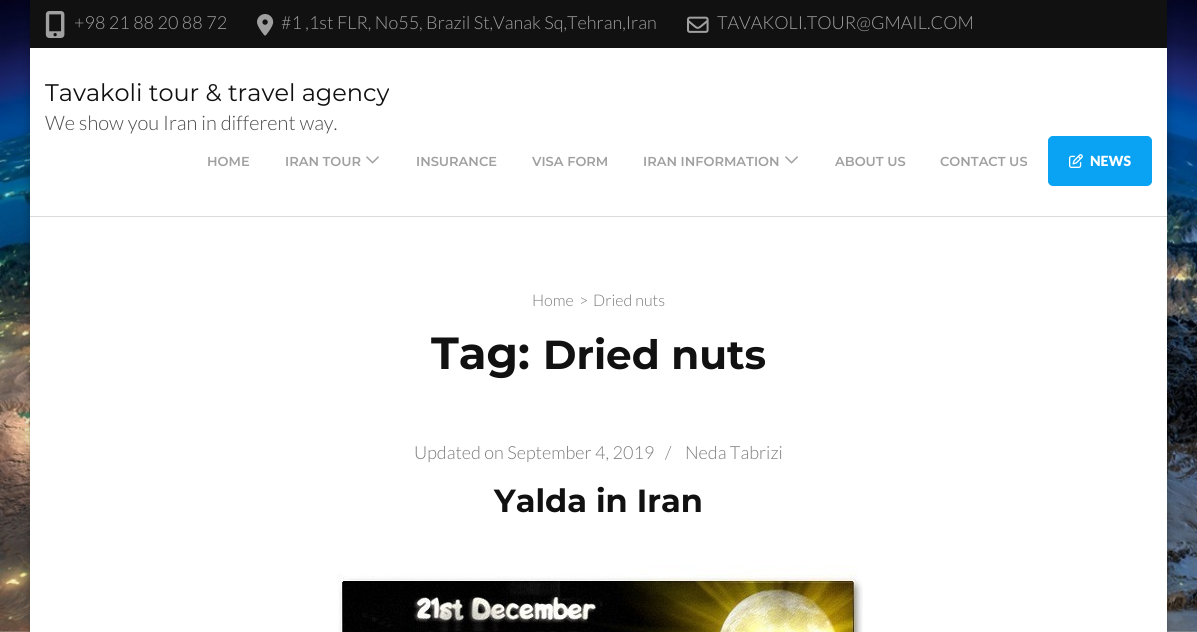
import math
import cairo

surface = cairo.ImageSurface(cairo.Format.RGB24, 1197, 632)
ctx = cairo.Context(surface)
options = cairo.FontOptions()
options.set_hint_metrics(cairo.HintMetrics.OFF)
options.set_hint_style(cairo.HintStyle.NONE)
ctx.set_font_options(options)
ctx.set_miter_limit(4)


def ink(r, g, b):
    ctx.set_source_rgb(r / 255, g / 255, b / 255)


def write(x, y, s, family, size, color, bold=False, italic=False):
    ctx.select_font_face(family, cairo.FontSlant.ITALIC if italic else cairo.FontSlant.NORMAL, cairo.FontWeight.BOLD if bold else cairo.FontWeight.NORMAL)
    ctx.set_font_size(size)
    ink(*color)
    ctx.move_to(x, y)
    ctx.show_text(s)


def block(x, y, w, h, *color):
    ink(*color)
    ctx.rectangle(x, y, w, h)
    ctx.fill()


def round_path(x, y, w, h, r):
    ctx.new_sub_path()
    for i, (u, v) in enumerate([(x + w - r, y + h - r), (x + r, y + h - r), (x + r, y + r), (x + w - r, y + r)]):
        ctx.arc(u, v, r, i * math.pi / 2, (i + 1) * math.pi / 2)
    ctx.close_path()


def blur_box(x, y, w, h, r, blur, alpha):
    ctx.push_group_with_content(cairo.Content.ALPHA)
    ctx.set_operator(cairo.Operator.SOURCE)
    for i in range(15, -16, -2):
        e = blur * i / 6
        if min(w, h) + 2 * e > 0:
            ctx.set_source_rgba(0, 0, 0, alpha * math.erfc((i - 1) / 8.5) / 2)
            round_path(x - e, y - e, w + 2 * e, h + 2 * e, max(0, min(r + e + blur * .6, min(w, h) / 2 + e)))
            ctx.fill()
    ctx.mask(ctx.pop_group())


def paste(path, x, y, w, h):
    ctx.save()
    ctx.set_source_surface(cairo.ImageSurface.create_from_png(path), x, y)
    ctx.rectangle(x, y, w, h)
    ctx.fill()
    ctx.restore()


s1 = dict(family="Lato Light", size=18, color=(160, 160, 160))
s2 = dict(family="Montserrat", size=24, color=(17, 17, 17))
s3 = dict(family="Lato Light", size=20, color=(74, 74, 74))
s4 = dict(family="Montserrat SemiBold", size=13, color=(160, 160, 160))
s5 = dict(family="Lato Black", size=14, color=(255, 255, 255))
s6 = dict(family="Lato Light", size=16, color=(123, 123, 123))
s7 = dict(family="Montserrat", size=45, color=(17, 17, 17), bold=True)
s8 = dict(family="Montserrat", size=40.5, color=(17, 17, 17), bold=True)
s9 = dict(family="Lato Light", size=18, color=(123, 123, 123))
s10 = dict(family="Montserrat", size=32, color=(17, 17, 17), bold=True)

ink(255, 255, 255)
ctx.paint()
paste("pic1.png", 0, 0, 1197, 632)
ink(0, 0, 0)
blur_box(30, 0, 1137, 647, 0, 5, 0.3)
block(30, 48, 1137, 584, 255, 255, 255)
block(30, 0, 1137, 48, 17, 17, 17)
paste("pic2.png", 45, 11, 20, 27)
write(74, 29, "+98 21 88 20 88 72", **s1)
paste("pic3.png", 257, 14, 17, 22)
write(281, 29, "#1 ,1st FLR, No55, Brazil St,Vanak Sq,Tehran,Iran", **s1)
paste("pic4.png", 687, 16, 22, 17)
write(717, 29, "TAVAKOLI.TOUR@GMAIL.COM", **s1)
block(30, 216, 1137, 1, 219, 219, 219)
write(45, 101, "Tavakoli tour & travel agency", **s2)
write(45, 130, "We show you Iran in different way.", **s3)
write(207, 166, "HOME", **s4)
write(285, 166, "IRAN TOUR", **s4)
paste("pic5.png", 366, 156, 13, 8)
write(416, 166, "INSURANCE", **s4)
write(532, 166, "VISA FORM", **s4)
write(643, 166, "IRAN INFORMATION", **s4)
paste("pic5.png", 785, 156, 13, 8)
write(835, 166, "ABOUT US", **s4)
write(940, 166, "CONTACT US", **s4)
ink(10, 163, 243)
round_path(1048.5, 136.5, 103, 49, 4.5)
ctx.fill_preserve()
ctx.set_line_width(1)
ctx.stroke()
paste("pic6.png", 1069, 154, 14, 14)
write(1090, 166, "NEWS", **s5)
write(532, 306, "Home", **s6)
write(579, 306, ">", **s6)
write(593, 306, "Dried nuts", **s6)
write(431, 369, "Tag:", **s7)
write(543, 369, "Dried nuts", **s8)
write(414, 459, "Updated on September 4, 2019", **s9)
write(665, 459, "/", **s9)
write(685, 459, "Neda Tabrizi", **s9)
write(494, 512, "Yalda in Iran", **s10)
paste("pic7.png", 337, 566, 526, 66)
surface.write_to_png("screenshot.png")
